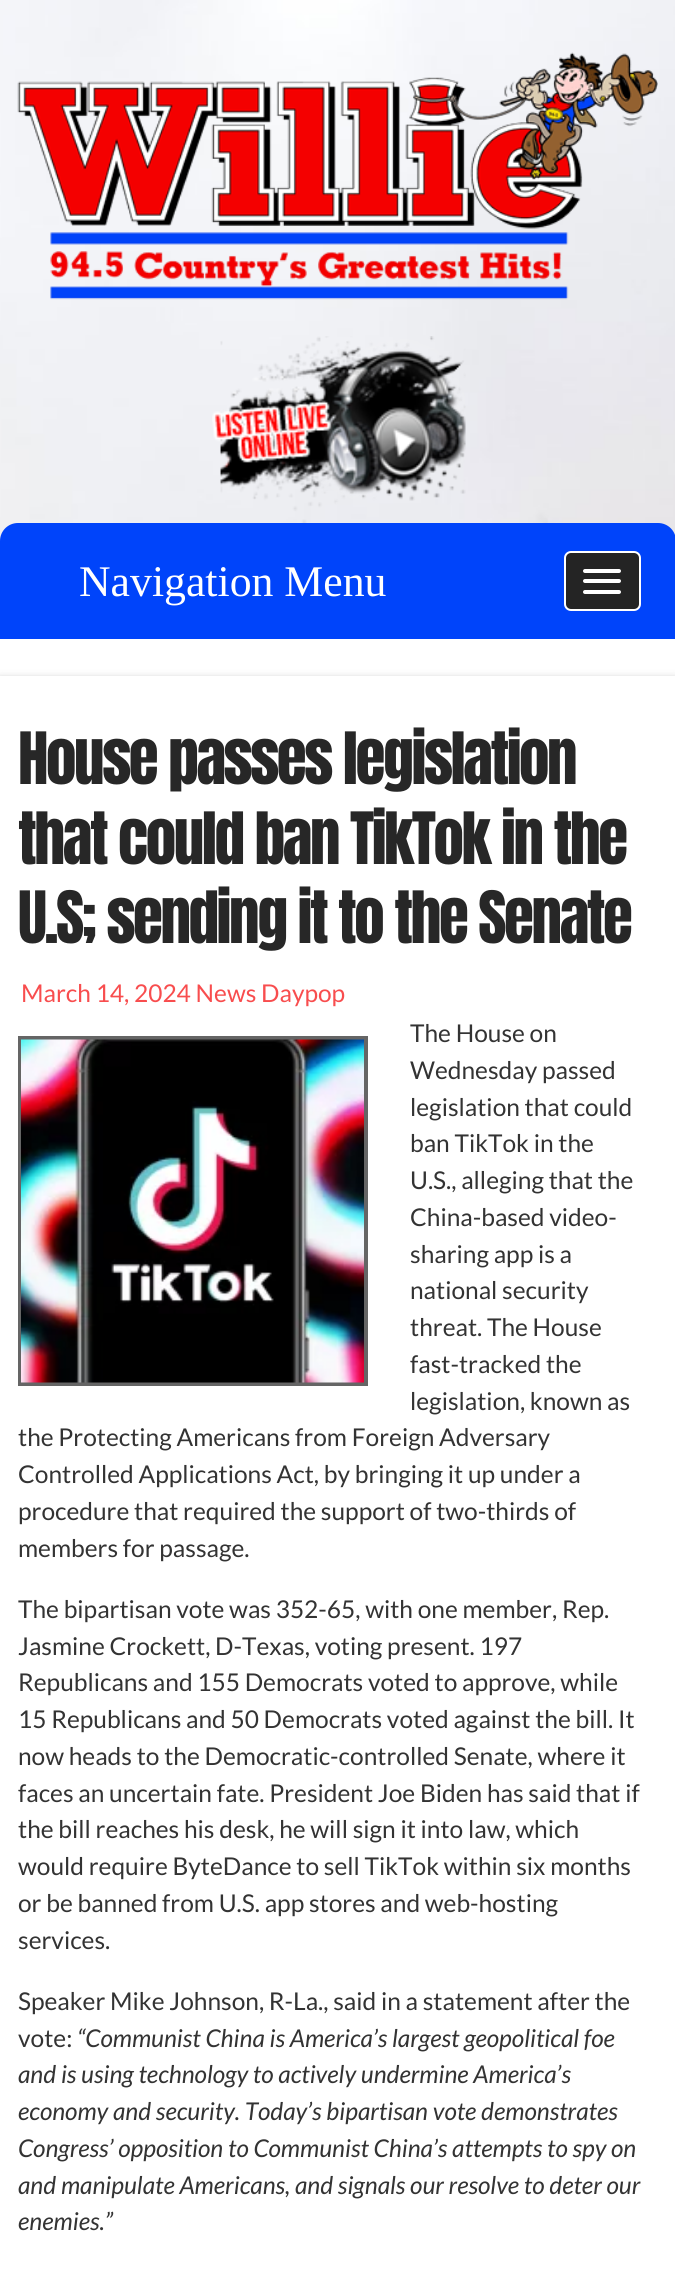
import math
import cairo

surface = cairo.ImageSurface(cairo.Format.RGB24, 675, 2276)
ctx = cairo.Context(surface)
options = cairo.FontOptions()
options.set_hint_metrics(cairo.HintMetrics.OFF)
options.set_hint_style(cairo.HintStyle.NONE)
ctx.set_font_options(options)
ctx.set_miter_limit(4)


def ink(r, g, b):
    ctx.set_source_rgb(r / 255, g / 255, b / 255)


def write(x, y, s, family, size, color, bold=False, italic=False):
    ctx.select_font_face(family, cairo.FontSlant.ITALIC if italic else cairo.FontSlant.NORMAL, cairo.FontWeight.BOLD if bold else cairo.FontWeight.NORMAL)
    ctx.set_font_size(size)
    ink(*color)
    ctx.move_to(x, y)
    ctx.show_text(s)


def write_spaced(x, y, s, letter, word):
    ctx.move_to(x, y)
    for ch in s:
        ctx.show_text(ch)
        ctx.rel_move_to(letter + word * (ch == ' '), 0)


def block(x, y, w, h, *color):
    ink(*color)
    ctx.rectangle(x, y, w, h)
    ctx.fill()


def round_path(x, y, w, h, r):
    ctx.new_sub_path()
    for i, (u, v) in enumerate([(x + w - r, y + h - r), (x + r, y + h - r), (x + r, y + r), (x + w - r, y + r)]):
        ctx.arc(u, v, r, i * math.pi / 2, (i + 1) * math.pi / 2)
    ctx.close_path()


def blur_box(x, y, w, h, r, blur, alpha):
    ctx.push_group_with_content(cairo.Content.ALPHA)
    ctx.set_operator(cairo.Operator.SOURCE)
    for i in range(15, -16, -2):
        e = blur * i / 6
        if min(w, h) + 2 * e > 0:
            ctx.set_source_rgba(0, 0, 0, alpha * math.erfc((i - 1) / 8.5) / 2)
            round_path(x - e, y - e, w + 2 * e, h + 2 * e, max(0, min(r + e + blur * .6, min(w, h) / 2 + e)))
            ctx.fill()
    ctx.mask(ctx.pop_group())


def paste(path, x, y, w, h):
    ctx.save()
    ctx.set_source_surface(cairo.ImageSurface.create_from_png(path), x, y)
    ctx.rectangle(x, y, w, h)
    ctx.fill()
    ctx.restore()


s1 = dict(family="Liberation Serif", size=43.75, color=(255, 255, 255))
s2 = dict(family="Lato", size=24.5, color=(248, 77, 78))
s3 = dict(family="Lato", size=24.5, color=(51, 51, 51))
s4 = dict(family="Lato", size=24.5, color=(51, 51, 51), italic=True)

ink(255, 255, 255)
ctx.paint()
paste("pic1.png", 0, 0, 675, 541)
paste("pic2.png", 17, 52, 641, 248)
paste("pic3.png", 212, 336, 254, 187)
ink(0, 68, 250)
ctx.new_path()
ctx.move_to(18, 523)
ctx.line_to(658, 523)
ctx.curve_to(668, 523, 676, 531, 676, 541)
ctx.line_to(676, 639)
ctx.line_to(0, 639)
ctx.line_to(0, 541)
ctx.curve_to(0, 531, 8, 523, 18, 523)
ctx.close_path()
ctx.fill()
write(79, 596, "Navigation Menu", **s1)
ink(36, 36, 36)
round_path(565, 552, 75, 58, 6)
ctx.fill_preserve()
ink(255, 255, 255)
ctx.stroke()
round_path(583, 569, 38, 4, 2)
ctx.fill()
round_path(583, 579, 38, 4, 2)
ctx.fill()
round_path(583, 590, 38, 4, 2)
ctx.fill()
ink(50, 50, 50)
blur_box(0, 681, 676, 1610, 0, 5, 0.55)
block(0, 676, 675, 1600, 255, 255, 255)
ctx.select_font_face("Anton")
ctx.set_font_size(61.25)
ink(39, 39, 39)
write_spaced(18, 784, "House passes legislation", -2.45, 0)
write_spaced(18, 864, "that could ban TikTok in the", -2.45, 0)
write_spaced(18, 943, "U.S; sending it to the Senate", -2.45, 0)
write(21, 1002, "March 14, 2024 News Daypop", **s2)
write(410, 1042, "The House on", **s3)
write(410, 1079, "Wednesday passed", **s3)
write(410, 1116, "legislation that could", **s3)
write(410, 1152, "ban TikTok in the", **s3)
write(410, 1189, "U.S., alleging that the", **s3)
write(410, 1226, "China-based video-", **s3)
write(410, 1263, "sharing app is a", **s3)
write(410, 1299, "national security", **s3)
write(410, 1336, "threat. The House", **s3)
write(410, 1373, "fast-tracked the", **s3)
write(410, 1410, "legislation, known as", **s3)
write(18, 1446, "the Protecting Americans from Foreign Adversary", **s3)
write(18, 1483, "Controlled Applications Act, by bringing it up under a", **s3)
write(18, 1520, "procedure that required the support of two-thirds of", **s3)
write(18, 1557, "members for passage.", **s3)
ctx.rectangle(20, 1038, 346, 346)
ink(101, 101, 101)
ctx.set_line_width(4)
ctx.stroke()
paste("pic4.png", 21, 1039, 343, 344)
write(18, 1618, "The bipartisan vote was 352-65, with one member, Rep.", **s3)
write(18, 1655, "Jasmine Crockett, D-Texas, voting present. 197", **s3)
write(18, 1691, "Republicans and 155 Democrats voted to approve, while", **s3)
write(18, 1728, "15 Republicans and 50 Democrats voted against the bill. It", **s3)
write(18, 1765, "now heads to the Democratic-controlled Senate, where it", **s3)
write(18, 1802, "faces an uncertain fate. President Joe Biden has said that if", **s3)
write(18, 1838, "the bill reaches his desk, he will sign it into law, which", **s3)
write(18, 1875, "would require ByteDance to sell TikTok within six months", **s3)
write(18, 1912, "or be banned from U.S. app stores and web-hosting", **s3)
write(18, 1949, "services.", **s3)
write(18, 2010, "Speaker Mike Johnson, R-La., said in a statement after the", **s3)
write(18, 2047, "vote:", **s3)
write(77, 2047, "“Communist China is America’s largest geopolitical foe", **s4)
write(18, 2083, "and is using technology to actively undermine America’s", **s4)
write(18, 2120, "economy and security. Today’s bipartisan vote demonstrates", **s4)
write(18, 2157, "Congress’ opposition to Communist China’s attempts to spy on", **s4)
write(18, 2194, "and manipulate Americans, and signals our resolve to deter our", **s4)
write(18, 2230, "enemies.”", **s4)
surface.write_to_png("screenshot.png")
